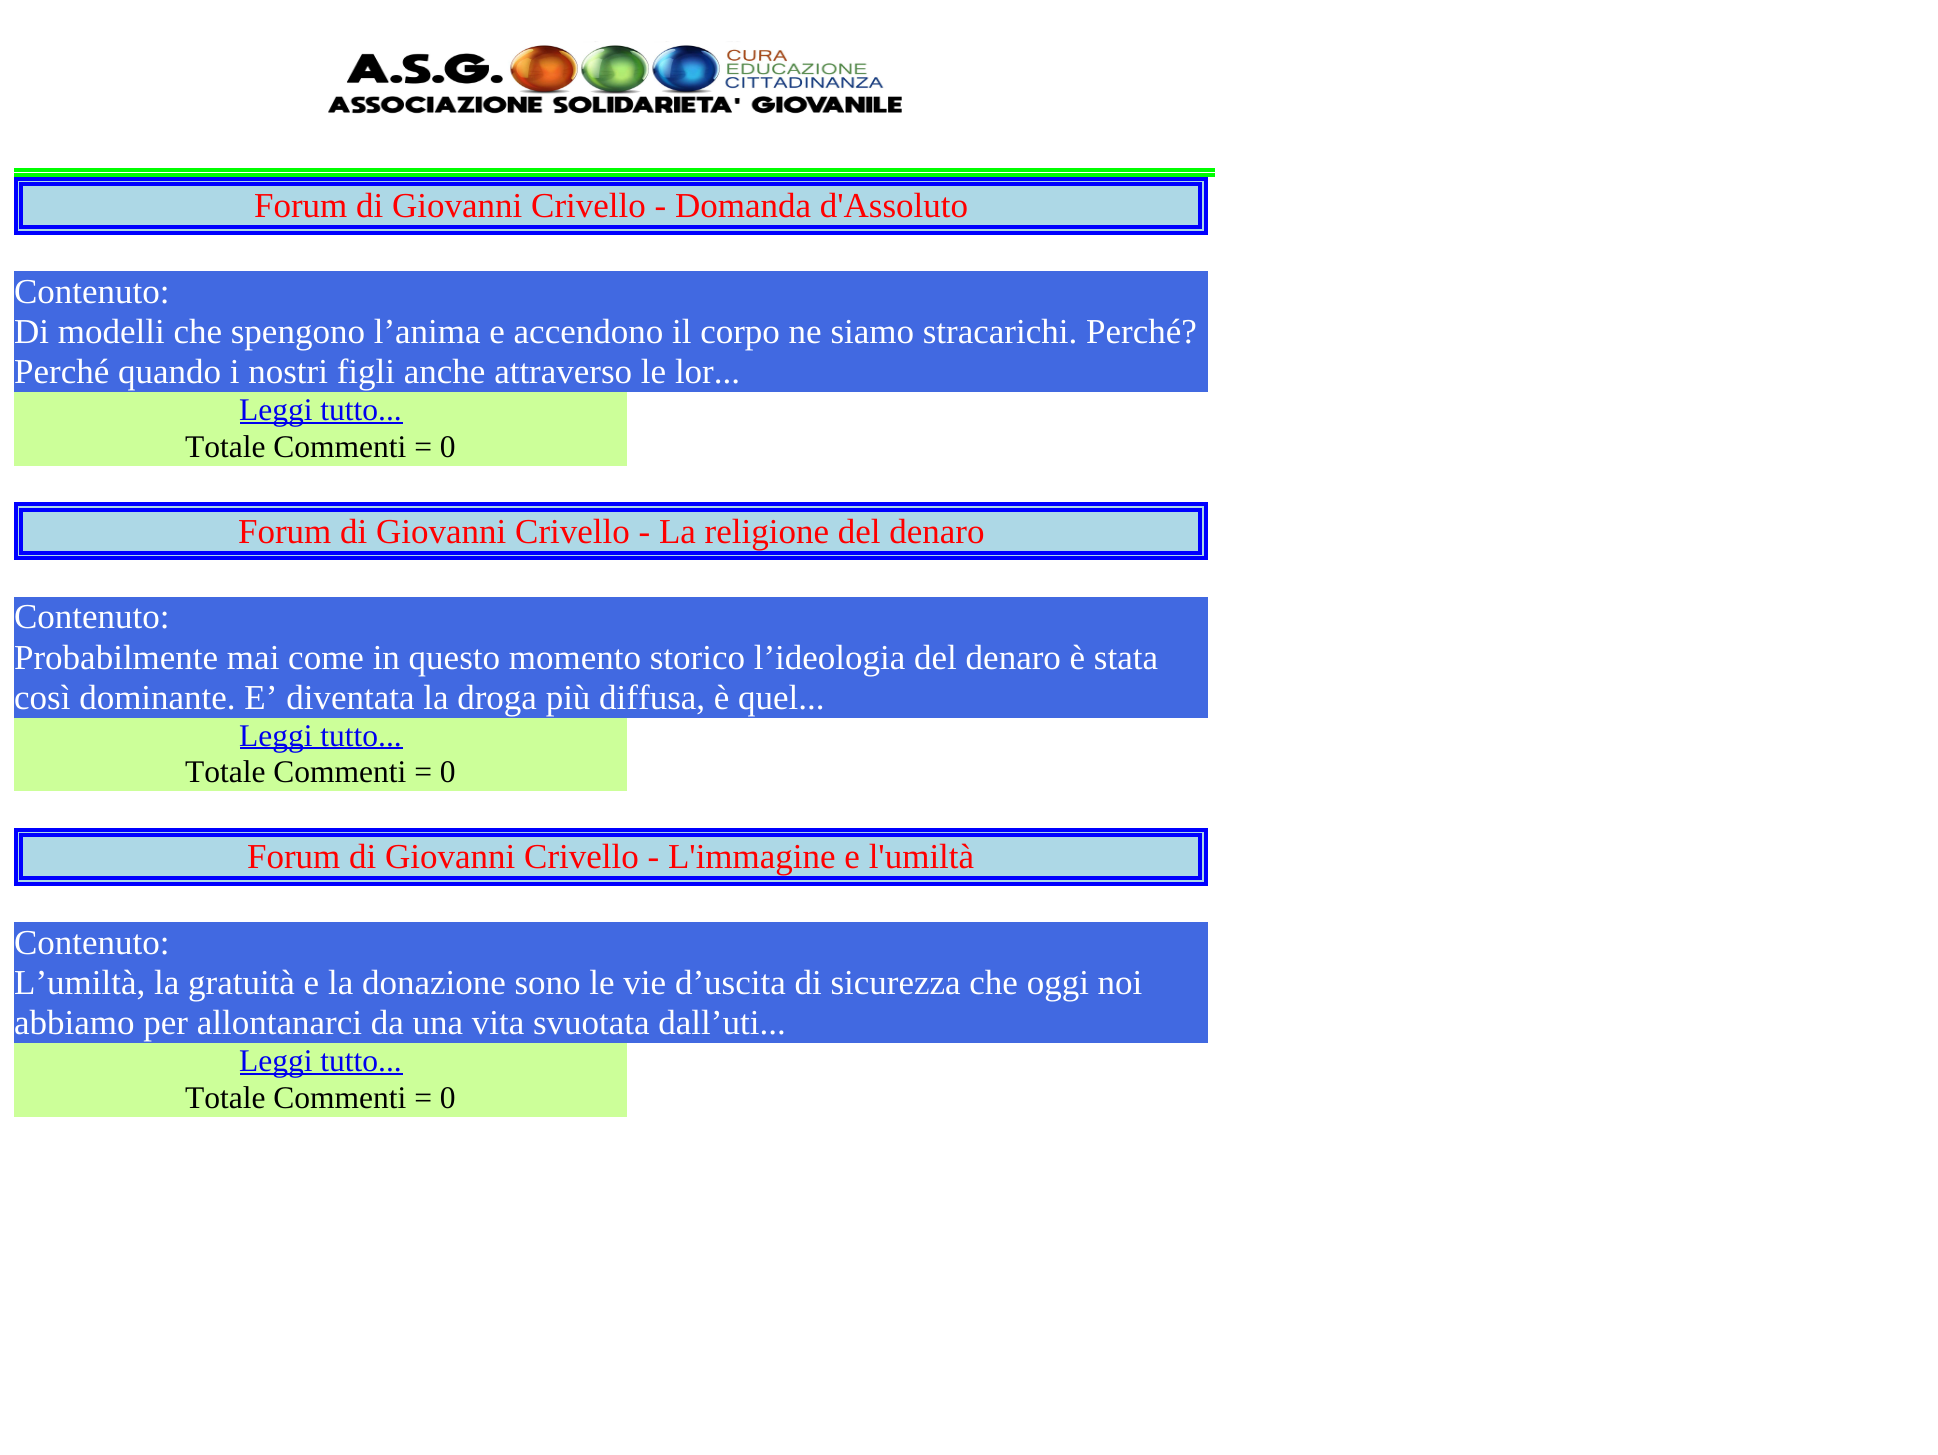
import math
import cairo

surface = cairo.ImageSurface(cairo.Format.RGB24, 1938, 1455)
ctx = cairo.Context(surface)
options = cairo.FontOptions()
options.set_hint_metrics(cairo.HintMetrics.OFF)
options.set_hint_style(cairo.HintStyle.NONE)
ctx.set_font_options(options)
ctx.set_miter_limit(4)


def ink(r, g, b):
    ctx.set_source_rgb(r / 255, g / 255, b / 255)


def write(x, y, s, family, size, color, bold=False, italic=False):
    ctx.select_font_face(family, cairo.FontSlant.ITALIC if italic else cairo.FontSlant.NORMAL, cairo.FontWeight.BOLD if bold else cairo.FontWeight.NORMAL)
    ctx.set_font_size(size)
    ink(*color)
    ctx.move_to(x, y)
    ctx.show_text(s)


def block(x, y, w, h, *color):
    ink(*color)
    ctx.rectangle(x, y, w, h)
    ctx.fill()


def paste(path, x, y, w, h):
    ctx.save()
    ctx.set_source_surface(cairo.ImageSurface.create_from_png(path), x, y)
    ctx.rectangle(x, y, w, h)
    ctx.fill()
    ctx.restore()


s1 = dict(family="Liberation Serif", size=35, color=(255, 0, 0))
s2 = dict(family="Liberation Serif", size=35, color=(255, 255, 255))
s3 = dict(family="Liberation Serif", size=31.5, color=(0, 0, 238))
s4 = dict(family="Liberation Serif", size=31.5, color=(0, 0, 0))

ink(255, 255, 255)
ctx.paint()
block(14, 168, 1201, 4, 0, 255, 0)
block(14, 173, 1201, 4, 0, 255, 0)
paste("pic1.png", 328, 41, 574, 73)
ink(173, 216, 230)
ctx.rectangle(16, 179, 1190, 54)
ctx.fill_preserve()
ink(0, 0, 255)
ctx.set_line_width(4)
ctx.stroke()
ctx.rectangle(21, 184, 1179, 43)
ctx.stroke()
write(254, 217, "Forum di Giovanni Crivello - Domanda d'Assoluto", **s1)
block(14, 271, 1194, 121, 65, 105, 225)
write(14, 303, "Contenuto:", **s2)
write(14, 343, "Di modelli che spengono l’anima e accendono il corpo ne siamo stracarichi. Perché?", **s2)
write(14, 383, "Perché quando i nostri figli anche attraverso le lor...", **s2)
block(14, 392, 613, 74, 204, 255, 153)
block(240, 422, 163, 2, 0, 0, 238)
write(239, 420, "Leggi tutto...", **s3)
write(185, 457, "Totale Commenti = 0", **s4)
ink(173, 216, 230)
ctx.rectangle(16, 504, 1190, 54)
ctx.fill_preserve()
ink(0, 0, 255)
ctx.stroke()
ctx.rectangle(21, 510, 1179, 43)
ctx.stroke()
write(238, 543, "Forum di Giovanni Crivello - La religione del denaro", **s1)
block(14, 597, 1194, 121, 65, 105, 225)
write(14, 628, "Contenuto:", **s2)
write(14, 669, "Probabilmente mai come in questo momento storico l’ideologia del denaro è stata", **s2)
write(14, 709, "così dominante. E’ diventata la droga più diffusa, è quel...", **s2)
block(14, 718, 613, 73, 204, 255, 153)
block(240, 747, 163, 2, 0, 0, 238)
write(239, 746, "Leggi tutto...", **s3)
write(185, 782, "Totale Commenti = 0", **s4)
ink(173, 216, 230)
ctx.rectangle(16, 830, 1190, 54)
ctx.fill_preserve()
ink(0, 0, 255)
ctx.stroke()
ctx.rectangle(21, 835, 1179, 43)
ctx.stroke()
write(247, 868, "Forum di Giovanni Crivello - L'immagine e l'umiltà", **s1)
block(14, 922, 1194, 121, 65, 105, 225)
write(14, 954, "Contenuto:", **s2)
write(14, 994, "L’umiltà, la gratuità e la donazione sono le vie d’uscita di sicurezza che oggi noi", **s2)
write(14, 1034, "abbiamo per allontanarci da una vita svuotata dall’uti...", **s2)
block(14, 1043, 613, 74, 204, 255, 153)
block(240, 1073, 163, 2, 0, 0, 238)
write(239, 1071, "Leggi tutto...", **s3)
write(185, 1108, "Totale Commenti = 0", **s4)
surface.write_to_png("screenshot.png")
